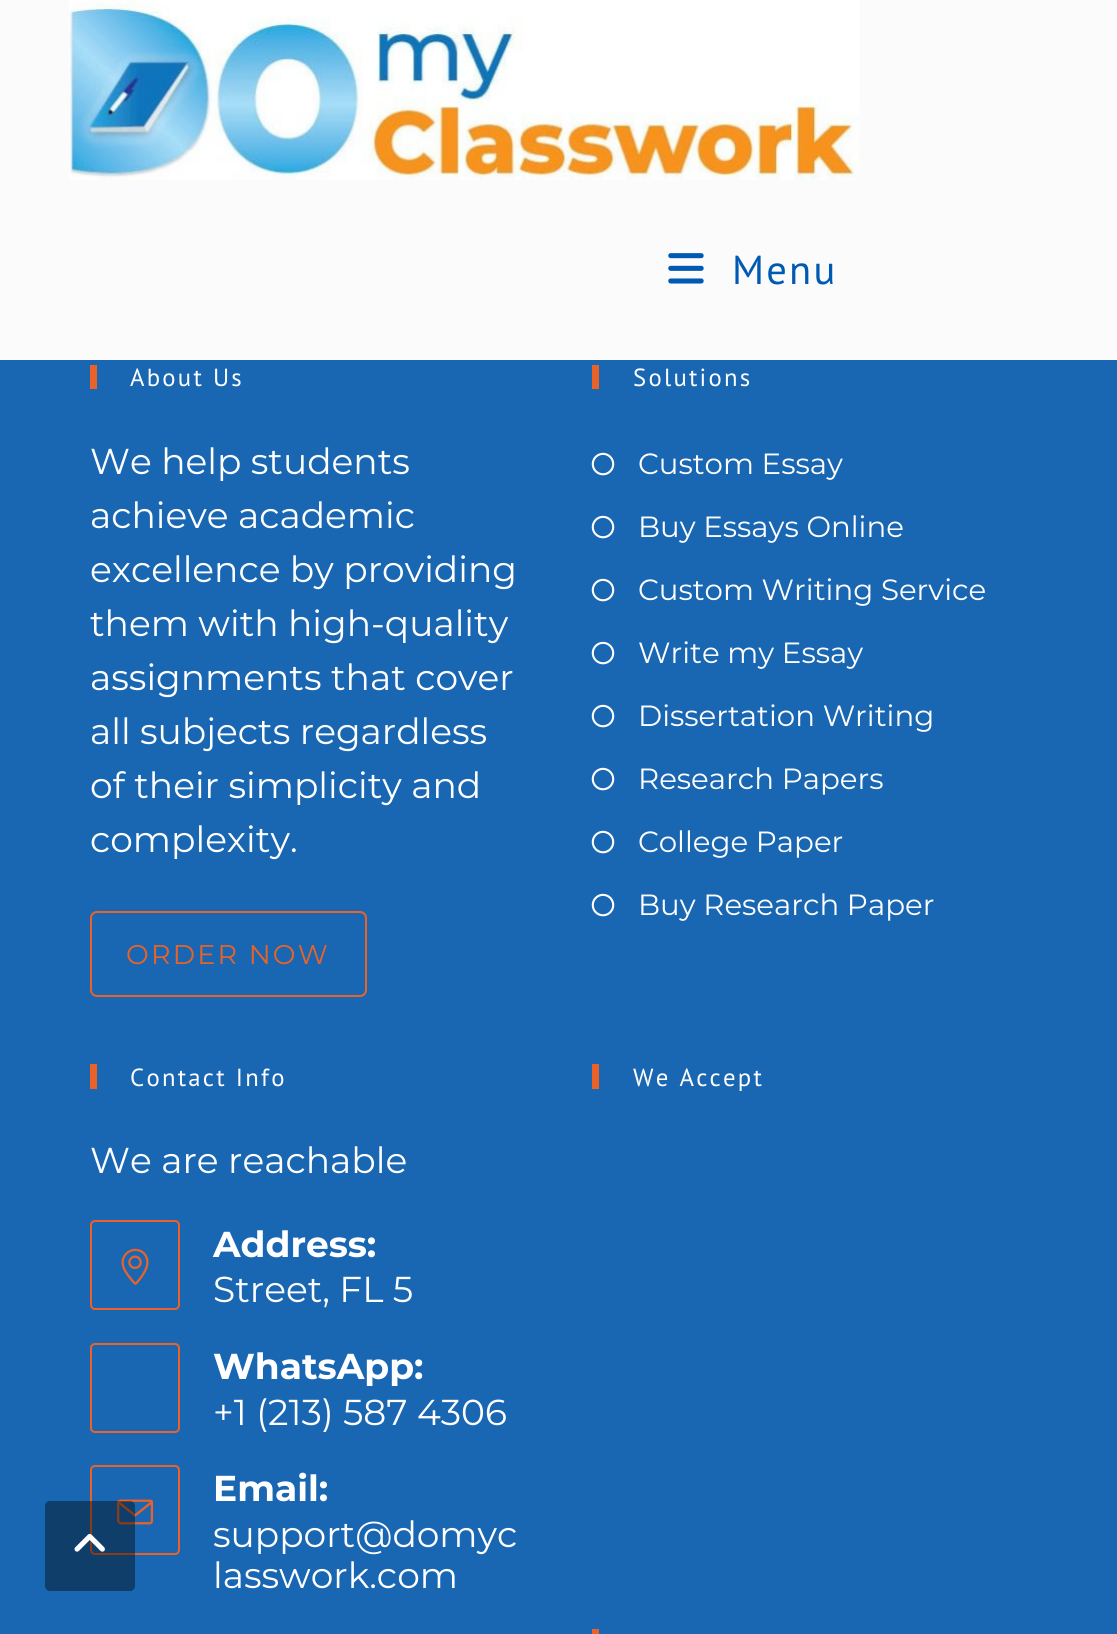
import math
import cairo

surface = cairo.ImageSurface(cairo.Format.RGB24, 1117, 1634)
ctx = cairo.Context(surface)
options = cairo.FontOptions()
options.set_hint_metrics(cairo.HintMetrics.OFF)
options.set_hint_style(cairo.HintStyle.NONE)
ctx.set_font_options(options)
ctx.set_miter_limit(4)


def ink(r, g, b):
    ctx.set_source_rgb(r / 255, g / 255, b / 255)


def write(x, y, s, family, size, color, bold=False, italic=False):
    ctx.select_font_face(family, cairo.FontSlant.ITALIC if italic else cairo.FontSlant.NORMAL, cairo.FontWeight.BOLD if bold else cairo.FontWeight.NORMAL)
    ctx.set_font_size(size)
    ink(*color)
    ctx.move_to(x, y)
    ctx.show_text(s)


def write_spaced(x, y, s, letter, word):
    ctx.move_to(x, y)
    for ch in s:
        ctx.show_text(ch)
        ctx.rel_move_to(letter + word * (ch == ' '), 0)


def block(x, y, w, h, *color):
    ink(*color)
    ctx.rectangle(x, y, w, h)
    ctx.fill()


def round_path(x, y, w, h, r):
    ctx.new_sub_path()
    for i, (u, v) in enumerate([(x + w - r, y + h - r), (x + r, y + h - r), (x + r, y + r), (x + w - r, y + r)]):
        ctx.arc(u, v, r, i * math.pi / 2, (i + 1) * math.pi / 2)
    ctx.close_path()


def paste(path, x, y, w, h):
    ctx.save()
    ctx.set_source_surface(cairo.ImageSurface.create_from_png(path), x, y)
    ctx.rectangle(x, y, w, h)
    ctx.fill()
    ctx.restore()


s1 = dict(family="Montserrat", size=36, color=(255, 255, 255))
s2 = dict(family="Montserrat", size=29.25, color=(255, 255, 255))
s3 = dict(family="Montserrat", size=36, color=(255, 255, 255), bold=True)

ink(25, 103, 179)
ctx.paint()
block(0, 0, 1117, 360, 251, 251, 251)
paste("pic1.png", 69, 0, 791, 180)
paste("pic2.png", 668, 253, 36, 31)
ctx.select_font_face("PT Sans")
ctx.set_font_size(40.5)
ink(0, 89, 178)
write_spaced(732, 284, "Menu", 2.25, 0)
block(90, 365, 7, 24, 234, 98, 39)
ctx.set_font_size(24.75)
ink(255, 255, 255)
write_spaced(130, 386, "About Us", 2.25, 0)
write(90, 474, "We help students", **s1)
write(90, 528, "achieve academic", **s1)
write(90, 582, "excellence by providing", **s1)
write(90, 636, "them with high-quality", **s1)
write(90, 690, "assignments that cover", **s1)
write(90, 744, "all subjects regardless", **s1)
write(90, 798, "of their simplicity and", **s1)
write(90, 852, "complexity.", **s1)
round_path(91, 912, 275, 84, 6)
ink(234, 98, 39)
ctx.stroke()
ctx.set_font_size(27)
write_spaced(126, 964, "ORDER NOW", 2.25, 0)
block(592, 365, 7, 24, 234, 98, 39)
ctx.select_font_face("PT Sans")
ctx.set_font_size(24.75)
ink(255, 255, 255)
write_spaced(633, 386, "Solutions", 2.25, 0)
paste("pic3.png", 591, 452, 24, 24)
write(638, 474, "Custom Essay", **s2)
paste("pic3.png", 591, 515, 24, 24)
write(638, 537, "Buy Essays Online", **s2)
paste("pic3.png", 591, 578, 24, 24)
write(638, 600, "Custom Writing Service", **s2)
paste("pic3.png", 591, 641, 24, 24)
write(638, 663, "Write my Essay", **s2)
paste("pic3.png", 591, 704, 24, 24)
write(638, 726, "Dissertation Writing", **s2)
paste("pic3.png", 591, 767, 24, 24)
write(638, 789, "Research Papers", **s2)
paste("pic3.png", 591, 830, 24, 24)
write(638, 852, "College Paper", **s2)
paste("pic3.png", 591, 893, 24, 24)
write(638, 915, "Buy Research Paper", **s2)
block(90, 1064, 7, 25, 234, 98, 39)
ctx.select_font_face("PT Sans")
ctx.set_font_size(24.75)
ink(255, 255, 255)
write_spaced(130, 1086, "Contact Info", 2.25, 0)
write(90, 1173, "We are reachable", **s1)
round_path(91, 1221, 88, 88, 4)
ink(234, 98, 39)
ctx.stroke()
paste("pic4.png", 121, 1248, 28, 37)
write(213, 1257, "Address:", **s3)
write(213, 1302, "Street, FL 5", **s1)
round_path(91, 1344, 88, 88, 4)
ink(234, 98, 39)
ctx.stroke()
write(213, 1379, "WhatsApp:", **s3)
write(213, 1425, "+1 (213) 587 4306", **s1)
round_path(91, 1466, 88, 88, 4)
ink(234, 98, 39)
ctx.stroke()
paste("pic5.png", 117, 1499, 37, 26)
write(213, 1501, "Email:", **s3)
write(213, 1547, "support@domyc", **s1)
write(213, 1588, "lasswork.com", **s1)
block(592, 1064, 7, 25, 234, 98, 39)
ctx.select_font_face("PT Sans")
ctx.set_font_size(24.75)
ink(255, 255, 255)
write_spaced(633, 1086, "We Accept", 2.25, 0)
block(592, 1629, 7, 5, 234, 98, 39)
ctx.set_source_rgba(0, 0, 0, 0.4)
round_path(45, 1501, 90, 90, 5)
ctx.fill()
paste("pic6.png", 74, 1534, 31, 18)
surface.write_to_png("screenshot.png")
